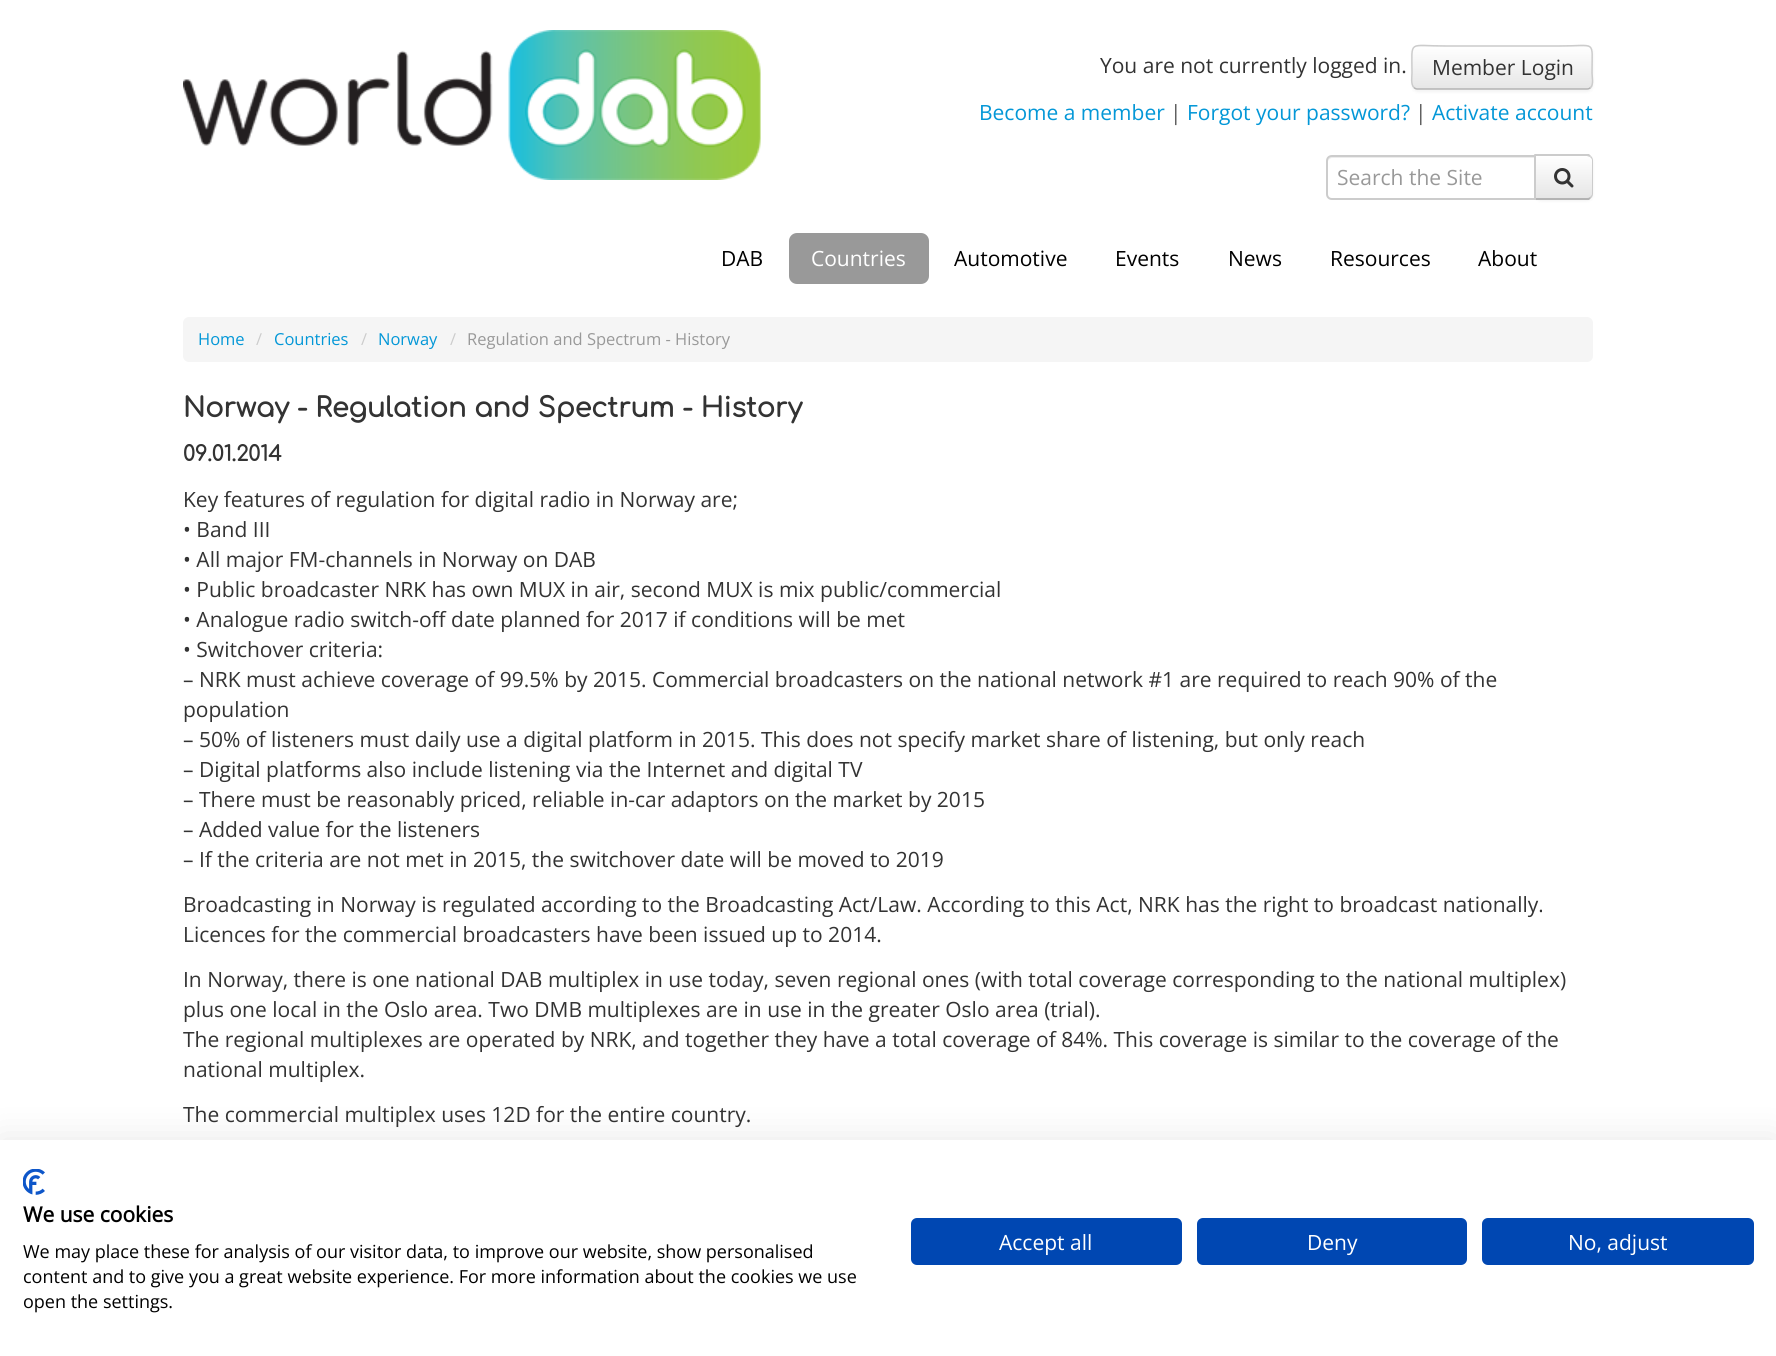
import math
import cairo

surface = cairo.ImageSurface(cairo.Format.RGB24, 1776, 1356)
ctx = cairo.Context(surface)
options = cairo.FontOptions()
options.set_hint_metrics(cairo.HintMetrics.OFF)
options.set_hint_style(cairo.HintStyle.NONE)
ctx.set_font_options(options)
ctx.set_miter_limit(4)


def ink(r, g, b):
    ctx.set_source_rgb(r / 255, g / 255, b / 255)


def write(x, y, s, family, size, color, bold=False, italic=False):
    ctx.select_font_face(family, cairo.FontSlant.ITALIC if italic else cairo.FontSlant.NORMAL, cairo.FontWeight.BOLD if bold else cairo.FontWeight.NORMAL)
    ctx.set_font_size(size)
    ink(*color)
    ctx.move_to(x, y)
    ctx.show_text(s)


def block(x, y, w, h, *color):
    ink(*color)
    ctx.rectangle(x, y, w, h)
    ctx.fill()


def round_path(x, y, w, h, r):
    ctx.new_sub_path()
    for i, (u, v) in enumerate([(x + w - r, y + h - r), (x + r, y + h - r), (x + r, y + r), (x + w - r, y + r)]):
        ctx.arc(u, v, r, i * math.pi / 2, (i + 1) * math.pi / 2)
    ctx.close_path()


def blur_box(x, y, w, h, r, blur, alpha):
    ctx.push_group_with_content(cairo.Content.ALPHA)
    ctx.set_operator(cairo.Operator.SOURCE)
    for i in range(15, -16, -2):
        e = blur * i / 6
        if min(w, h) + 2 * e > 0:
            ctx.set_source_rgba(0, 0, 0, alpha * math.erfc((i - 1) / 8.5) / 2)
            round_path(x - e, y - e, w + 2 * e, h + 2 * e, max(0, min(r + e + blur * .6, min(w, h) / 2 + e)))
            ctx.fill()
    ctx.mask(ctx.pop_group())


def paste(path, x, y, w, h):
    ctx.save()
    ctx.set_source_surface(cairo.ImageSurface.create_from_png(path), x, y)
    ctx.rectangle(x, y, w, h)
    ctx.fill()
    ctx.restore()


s1 = dict(family="Open Sans", size=21, color=(51, 51, 51))
s2 = dict(family="Open Sans", size=21, color=(3, 151, 215))
s3 = dict(family="Open Sans", size=21, color=(89, 89, 89))
s4 = dict(family="Open Sans", size=21, color=(153, 153, 153))
s5 = dict(family="Open Sans", size=21, color=(0, 0, 0))
s6 = dict(family="Open Sans", size=21, color=(255, 255, 255))
s7 = dict(family="Open Sans", size=16.5, color=(3, 151, 215))
s8 = dict(family="Open Sans", size=16.5, color=(204, 204, 204))
s9 = dict(family="Open Sans", size=16.5, color=(153, 153, 153))
s10 = dict(family="Comfortaa", size=27, color=(51, 51, 51), bold=True)
s11 = dict(family="Comfortaa", size=21, color=(51, 51, 51), bold=True)
s12 = dict(family="Open Sans", size=21, color=(0, 0, 0), bold=True)
s13 = dict(family="Open Sans", size=18, color=(0, 0, 0))

ink(255, 255, 255)
ctx.paint()
paste("pic1.png", 183, 30, 578, 150)
write(1100, 73, "You are not currently logged in.", **s1)
ink(0, 0, 0)
blur_box(1412, 47, 181, 45, 6, 1.5, 0.05)
ink(245, 245, 245)
round_path(1412, 45, 181, 45, 6)
ctx.fill()
ctx.save()
round_path(1412, 45, 181, 45, 6)
ctx.clip()
gradient = cairo.LinearGradient(1502, 46, 1502, 89)
gradient.add_color_stop_rgba(0, 1, 1, 1, 1)
gradient.add_color_stop_rgba(1, 0.902, 0.902, 0.902, 1)
ctx.set_source(gradient)
ctx.rectangle(1412, 47, 181, 42)
ctx.fill()
ctx.restore()
ctx.new_path()
ctx.move_to(1590.5, 87.5)
ctx.curve_to(1589.5, 88.5, 1588.5, 89, 1587, 89)
ctx.line_to(1417.5, 89)
ctx.curve_to(1416, 89, 1415, 88.5, 1414, 87.5)
ink(179, 179, 179)
ctx.set_line_width(1.5)
ctx.stroke()
ctx.new_path()
ctx.move_to(1414, 87.5)
ctx.curve_to(1410.5, 84.5, 1412, 76.5, 1412, 73)
ctx.curve_to(1412, 39, 1407.5, 46, 1446, 46)
ctx.line_to(1559, 46)
ctx.curve_to(1597, 46, 1592, 39, 1592, 73)
ctx.curve_to(1592, 76.5, 1594, 84.5, 1590.5, 87.5)
ink(204, 204, 204)
ctx.stroke()
write(1432, 75, "Member Login", **s1)
write(979, 120, "Become a member", **s2)
write(1170, 120, "|", **s3)
write(1187, 120, "Forgot your password?", **s2)
write(1415, 120, "|", **s3)
write(1432, 120, "Activate account", **s2)
ink(0, 0, 0)
blur_box(1535, 156, 58, 45, 6, 1.5, 0.05)
ink(245, 245, 245)
ctx.new_path()
ctx.move_to(1535, 155)
ctx.line_to(1587, 155)
ctx.curve_to(1590.5, 155, 1593, 157.5, 1593, 161)
ctx.line_to(1593, 194)
ctx.curve_to(1593, 197.5, 1590.5, 200, 1587, 200)
ctx.line_to(1535, 200)
ctx.close_path()
ctx.fill()
ctx.save()
ctx.new_path()
ctx.move_to(1535, 155)
ctx.line_to(1587, 155)
ctx.curve_to(1590.5, 155, 1593, 157.5, 1593, 161)
ctx.line_to(1593, 194)
ctx.curve_to(1593, 197.5, 1590.5, 200, 1587, 200)
ctx.line_to(1535, 200)
ctx.close_path()
ctx.clip()
gradient = cairo.LinearGradient(1564, 156, 1564, 198)
gradient.add_color_stop_rgba(0, 1, 1, 1, 1)
gradient.add_color_stop_rgba(1, 0.902, 0.902, 0.902, 1)
ctx.set_source(gradient)
ctx.rectangle(1536, 156, 57, 42)
ctx.fill()
ctx.restore()
ink(204, 204, 204)
ctx.new_path()
ctx.move_to(1536, 156)
ctx.line_to(1534, 154)
ctx.line_to(1589, 154)
ctx.line_to(1591, 156)
ctx.line_to(1590, 157)
ctx.line_to(1587, 156)
ctx.close_path()
ctx.fill()
ctx.new_path()
ctx.move_to(1593, 194)
ctx.line_to(1593, 160)
ctx.curve_to(1593, 159, 1592, 157, 1591, 156)
ctx.line_to(1590, 157)
ctx.curve_to(1591, 158, 1592, 159, 1592, 160)
ctx.line_to(1592, 194)
ctx.curve_to(1592, 195, 1591, 196, 1590, 197)
ctx.line_to(1591, 198)
ctx.curve_to(1592, 197, 1593, 195, 1593, 194)
ctx.close_path()
ctx.fill()
ink(179, 179, 179)
ctx.new_path()
ctx.move_to(1591, 198)
ctx.line_to(1589, 200)
ctx.line_to(1534, 200)
ctx.line_to(1536, 198)
ctx.line_to(1587, 198)
ctx.curve_to(1588, 198, 1589, 198, 1590, 197)
ctx.close_path()
ctx.fill()
ink(204, 204, 204)
ctx.new_path()
ctx.move_to(1534, 200)
ctx.line_to(1536, 198)
ctx.line_to(1536, 156)
ctx.line_to(1534, 154)
ctx.close_path()
ctx.fill()
ink(255, 255, 255)
ctx.new_path()
ctx.move_to(1332, 155)
ctx.line_to(1536, 155)
ctx.line_to(1536, 200)
ctx.line_to(1332, 200)
ctx.curve_to(1328.5, 200, 1326, 197.5, 1326, 194)
ctx.line_to(1326, 161)
ctx.curve_to(1326, 157.5, 1328.5, 155, 1332, 155)
ctx.close_path()
ctx.fill()
ink(236, 236, 236)
ctx.new_path()
ctx.move_to(1332, 158)
ctx.line_to(1534, 158)
ctx.line_to(1534, 198)
ctx.line_to(1535, 198)
ctx.line_to(1535, 156)
ctx.line_to(1332, 156)
ctx.curve_to(1329, 157, 1328, 159, 1328, 162)
ctx.curve_to(1328, 160, 1330, 158, 1332, 158)
ctx.close_path()
ctx.fill()
ctx.new_path()
ctx.move_to(1332, 156)
ctx.line_to(1535, 156)
ctx.line_to(1535, 199)
ctx.line_to(1332, 199)
ctx.curve_to(1329, 199, 1327, 197, 1327, 194)
ctx.line_to(1327, 161)
ctx.curve_to(1327, 158, 1329, 156, 1332, 156)
ctx.close_path()
ink(204, 204, 204)
ctx.set_line_width(2)
ctx.stroke()
write(1337, 185, "Search the Site", **s4)
paste("pic2.png", 1554, 168, 20, 20)
write(721, 266, "DAB", **s5)
ink(153, 153, 153)
round_path(789, 233, 140, 51, 8)
ctx.fill()
write(811, 266, "Countries", **s6)
write(954, 266, "Automotive", **s5)
write(1115, 266, "Events", **s5)
write(1228, 266, "News", **s5)
write(1330, 266, "Resources", **s5)
write(1478, 266, "About", **s5)
ink(245, 245, 245)
round_path(183, 317, 1410, 45, 6)
ctx.fill()
write(198, 345, "Home", **s7)
write(256, 345, "/", **s8)
write(274, 345, "Countries", **s7)
write(361, 345, "/", **s8)
write(378, 345, "Norway", **s7)
write(450, 345, "/", **s8)
write(467, 345, "Regulation and Spectrum - History", **s9)
write(183, 417, "Norway - Regulation and Spectrum - History", **s10)
write(183, 461, "09.01.2014", **s11)
write(183, 507, "Key features of regulation for digital radio in Norway are;", **s1)
write(183, 537, "• Band III", **s1)
write(183, 567, "• All major FM-channels in Norway on DAB", **s1)
write(183, 597, "• Public broadcaster NRK has own MUX in air, second MUX is mix public/commercial", **s1)
write(183, 627, "• Analogue radio switch-off date planned for 2017 if conditions will be met", **s1)
write(183, 657, "• Switchover criteria:", **s1)
write(183, 687, "– NRK must achieve coverage of 99.5% by 2015. Commercial broadcasters on the national network #1 are required to reach 90% of the", **s1)
write(183, 717, "population", **s1)
write(183, 747, "– 50% of listeners must daily use a digital platform in 2015. This does not specify market share of listening, but only reach", **s1)
write(183, 777, "– Digital platforms also include listening via the Internet and digital TV", **s1)
write(183, 807, "– There must be reasonably priced, reliable in-car adaptors on the market by 2015", **s1)
write(183, 837, "– Added value for the listeners", **s1)
write(183, 867, "– If the criteria are not met in 2015, the switchover date will be moved to 2019", **s1)
write(183, 912, "Broadcasting in Norway is regulated according to the Broadcasting Act/Law. According to this Act, NRK has the right to broadcast nationally.", **s1)
write(183, 942, "Licences for the commercial broadcasters have been issued up to 2014.", **s1)
write(183, 987, "In Norway, there is one national DAB multiplex in use today, seven regional ones (with total coverage corresponding to the national multiplex)", **s1)
write(183, 1017, "plus one local in the Oslo area. Two DMB multiplexes are in use in the greater Oslo area (trial).", **s1)
write(183, 1047, "The regional multiplexes are operated by NRK, and together they have a total coverage of 84%. This coverage is similar to the coverage of the", **s1)
write(183, 1077, "national multiplex.", **s1)
write(183, 1122, "The commercial multiplex uses 12D for the entire country.", **s1)
ink(0, 0, 0)
blur_box(0, 1140, 1776, 216, 0, 18, 0.1)
block(0, 1140, 1776, 216, 255, 255, 255)
paste("pic3.png", 23, 1169, 22, 26)
write(23, 1222, "We use cookies", **s12)
write(23, 1258, "We may place these for analysis of our visitor data, to improve our website, show personalised", **s13)
write(23, 1283, "content and to give you a great website experience. For more information about the cookies we use", **s13)
write(23, 1308, "open the settings.", **s13)
ink(0, 71, 178)
round_path(912, 1219, 269, 45, 5)
ctx.fill_preserve()
ctx.stroke()
write(999, 1250, "Accept all", **s6)
ink(0, 71, 178)
round_path(1198, 1219, 268, 45, 5)
ctx.fill_preserve()
ctx.stroke()
write(1307, 1250, "Deny", **s6)
ink(0, 71, 178)
round_path(1483, 1219, 270, 45, 5)
ctx.fill_preserve()
ctx.stroke()
write(1568, 1250, "No, adjust", **s6)
surface.write_to_png("screenshot.png")
